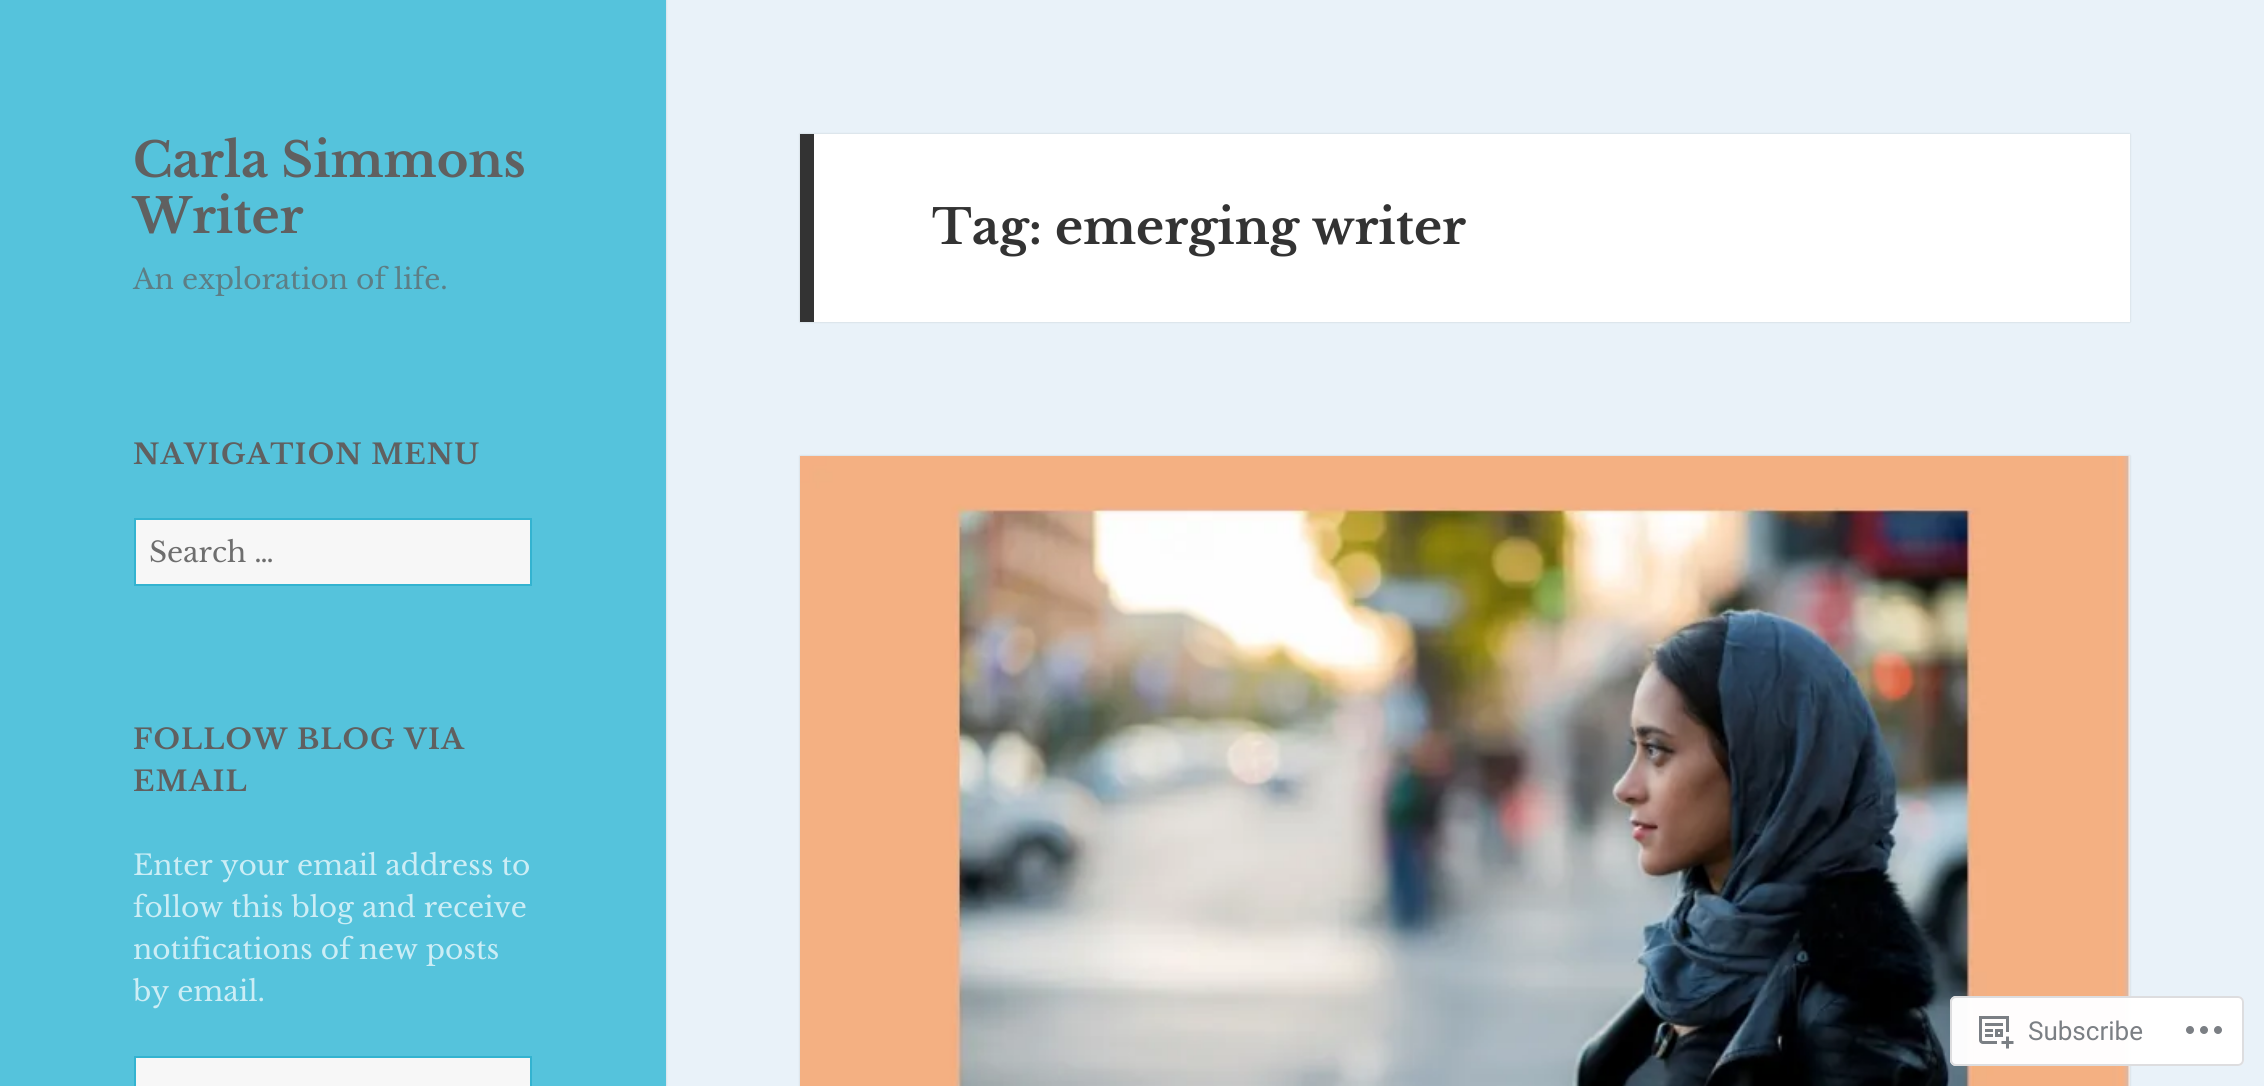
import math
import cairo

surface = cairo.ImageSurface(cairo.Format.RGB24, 2264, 1086)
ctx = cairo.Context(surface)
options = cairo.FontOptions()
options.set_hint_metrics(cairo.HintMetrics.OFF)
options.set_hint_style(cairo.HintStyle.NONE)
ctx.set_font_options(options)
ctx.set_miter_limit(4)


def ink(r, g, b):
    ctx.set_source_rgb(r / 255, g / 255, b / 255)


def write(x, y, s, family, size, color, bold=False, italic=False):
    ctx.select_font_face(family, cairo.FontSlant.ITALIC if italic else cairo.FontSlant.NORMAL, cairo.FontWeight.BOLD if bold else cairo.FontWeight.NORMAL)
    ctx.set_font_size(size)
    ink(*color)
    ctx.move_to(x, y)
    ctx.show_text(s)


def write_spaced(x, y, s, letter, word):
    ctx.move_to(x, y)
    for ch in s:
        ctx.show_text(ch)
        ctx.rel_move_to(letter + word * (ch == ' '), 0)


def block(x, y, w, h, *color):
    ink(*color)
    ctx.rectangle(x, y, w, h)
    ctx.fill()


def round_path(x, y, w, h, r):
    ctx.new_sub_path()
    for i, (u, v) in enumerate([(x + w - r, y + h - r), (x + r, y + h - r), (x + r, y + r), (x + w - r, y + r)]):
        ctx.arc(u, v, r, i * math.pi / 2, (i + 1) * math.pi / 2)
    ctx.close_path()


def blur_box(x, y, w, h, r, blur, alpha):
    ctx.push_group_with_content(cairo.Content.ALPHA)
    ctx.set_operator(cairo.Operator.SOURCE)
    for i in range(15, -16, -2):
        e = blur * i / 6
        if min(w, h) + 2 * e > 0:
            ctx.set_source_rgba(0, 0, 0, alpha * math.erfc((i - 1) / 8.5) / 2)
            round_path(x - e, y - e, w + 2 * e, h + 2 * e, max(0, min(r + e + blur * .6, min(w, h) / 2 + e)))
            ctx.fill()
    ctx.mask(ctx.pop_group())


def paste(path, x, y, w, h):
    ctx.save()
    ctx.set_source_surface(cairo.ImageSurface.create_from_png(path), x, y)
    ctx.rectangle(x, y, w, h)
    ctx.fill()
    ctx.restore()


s1 = dict(family="Libre Baskerville", size=48, color=(96, 96, 96), bold=True)
s2 = dict(family="Libre Baskerville", size=28, color=(93, 126, 133))
s3 = dict(family="Libre Baskerville", size=28, color=(110, 110, 110))
s4 = dict(family="Libre Baskerville", size=28, color=(204, 237, 245))
s5 = dict(family="Libre Baskerville", size=48, color=(51, 51, 51), bold=True)
s6 = dict(family="Roboto", size=26, color=(123, 127, 132))

ink(233, 242, 249)
ctx.paint()
ink(0, 0, 0)
blur_box(0, 0, 666, 1086, 0, 1, 0.15)
block(0, 0, 666, 1086, 85, 195, 220)
write(133, 177, "Carla Simmons", **s1)
write(133, 233, "Writer", **s1)
write(133, 289, "An exploration of life.", **s2)
ctx.select_font_face("Libre Baskerville", cairo.FontSlant.NORMAL, cairo.FontWeight.BOLD)
ink(96, 96, 96)
write_spaced(133, 464, "NAVIGATION MENU", 1.1, 0)
ink(247, 247, 247)
ctx.rectangle(135, 519, 396, 66)
ctx.fill_preserve()
ink(51, 179, 208)
ctx.stroke()
write(149, 562, "Search …", **s3)
ctx.select_font_face("Libre Baskerville", cairo.FontSlant.NORMAL, cairo.FontWeight.BOLD)
ink(96, 96, 96)
write_spaced(133, 749, "FOLLOW BLOG VIA", 1.1, 0)
write_spaced(133, 791, "EMAIL", 1.1, 0)
write(133, 875, "Enter your email address to", **s4)
write(133, 917, "follow this blog and receive", **s4)
write(133, 959, "notifications of new posts", **s4)
write(133, 1001, "by email.", **s4)
ink(247, 247, 247)
ctx.rectangle(135, 1057, 396, 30)
ctx.fill_preserve()
ink(51, 179, 208)
ctx.stroke()
ink(0, 0, 0)
blur_box(800, 134, 1330, 188, 0, 1, 0.15)
block(814, 134, 1316, 188, 255, 255, 255)
block(800, 134, 14, 188, 51, 51, 51)
write(932, 244, "Tag: emerging writer", **s5)
ink(0, 0, 0)
blur_box(800, 456, 1330, 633, 0, 1, 0.15)
paste("pic1.png", 800, 456, 1330, 630)
ctx.set_source_rgba(1, 1, 1, 0.98)
round_path(1950, 996, 294, 70, 6)
ctx.fill()
round_path(1951, 997, 292, 68, 5)
ctx.set_source_rgba(0.863, 0.863, 0.871, 0.98)
ctx.stroke()
paste("pic2.png", 1979, 1016, 35, 33)
write(2028, 1040, "Subscribe", **s6)
paste("pic3.png", 2186, 1026, 36, 8)
surface.write_to_png("screenshot.png")
